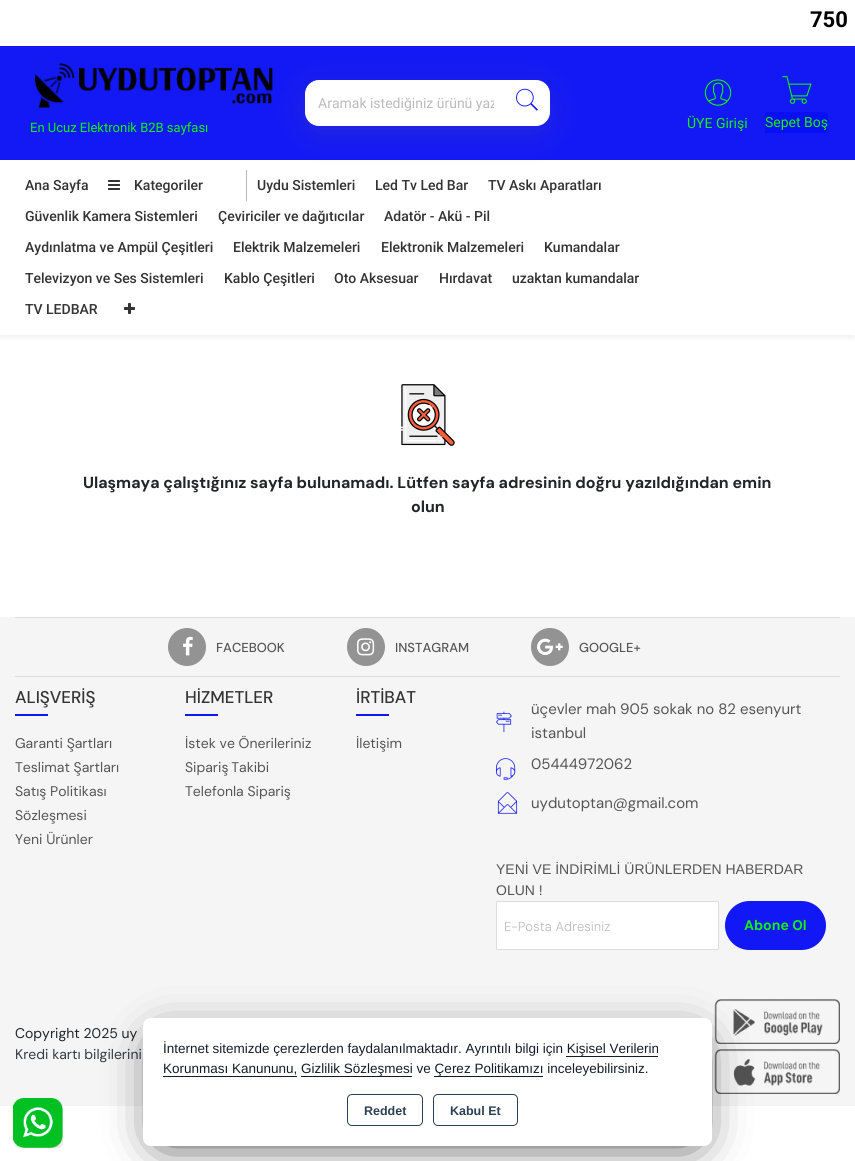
import math
import cairo

surface = cairo.ImageSurface(cairo.Format.RGB24, 855, 1161)
ctx = cairo.Context(surface)
options = cairo.FontOptions()
options.set_hint_metrics(cairo.HintMetrics.OFF)
options.set_hint_style(cairo.HintStyle.NONE)
ctx.set_font_options(options)
ctx.set_miter_limit(4)


def ink(r, g, b):
    ctx.set_source_rgb(r / 255, g / 255, b / 255)


def write(x, y, s, family, size, color, bold=False, italic=False):
    ctx.select_font_face(family, cairo.FontSlant.ITALIC if italic else cairo.FontSlant.NORMAL, cairo.FontWeight.BOLD if bold else cairo.FontWeight.NORMAL)
    ctx.set_font_size(size)
    ink(*color)
    ctx.move_to(x, y)
    ctx.show_text(s)


def write_spaced(x, y, s, letter, word):
    ctx.move_to(x, y)
    for ch in s:
        ctx.show_text(ch)
        ctx.rel_move_to(letter + word * (ch == ' '), 0)


def block(x, y, w, h, *color):
    ink(*color)
    ctx.rectangle(x, y, w, h)
    ctx.fill()


def round_path(x, y, w, h, r):
    ctx.new_sub_path()
    for i, (u, v) in enumerate([(x + w - r, y + h - r), (x + r, y + h - r), (x + r, y + r), (x + w - r, y + r)]):
        ctx.arc(u, v, r, i * math.pi / 2, (i + 1) * math.pi / 2)
    ctx.close_path()


def blur_box(x, y, w, h, r, blur, alpha):
    ctx.push_group_with_content(cairo.Content.ALPHA)
    ctx.set_operator(cairo.Operator.SOURCE)
    for i in range(15, -16, -2):
        e = blur * i / 6
        if min(w, h) + 2 * e > 0:
            ctx.set_source_rgba(0, 0, 0, alpha * math.erfc((i - 1) / 8.5) / 2)
            round_path(x - e, y - e, w + 2 * e, h + 2 * e, max(0, min(r + e + blur * .6, min(w, h) / 2 + e)))
            ctx.fill()
    ctx.mask(ctx.pop_group())


def paste(path, x, y, w, h):
    ctx.save()
    ctx.set_source_surface(cairo.ImageSurface.create_from_png(path), x, y)
    ctx.rectangle(x, y, w, h)
    ctx.fill()
    ctx.restore()


s1 = dict(family="Roboto", size=22, color=(0, 0, 0), bold=True)
s2 = dict(family="Roboto", size=14, color=(187, 187, 187))
s3 = dict(family="Roboto", size=13, color=(18, 242, 16))
s4 = dict(family="Roboto", size=14, color=(18, 242, 16))
s5 = dict(family="Roboto Medium", size=14, color=(51, 51, 51))
s6 = dict(family="DM Sans", size=16, color=(33, 37, 41), bold=True)
s7 = dict(family="DM Sans Medium", size=13, color=(85, 85, 85))
s8 = dict(family="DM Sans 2 Medium", size=17, color=(51, 51, 51))
s9 = dict(family="DM Sans", size=14, color=(85, 85, 85))
s10 = dict(family="DM Sans 2", size=15, color=(85, 85, 85))
s11 = dict(family="Liberation Sans", size=14, color=(85, 85, 85))
s12 = dict(family="DM Sans Light", size=13, color=(187, 187, 187))
s13 = dict(family="DM Sans 2", size=14, color=(18, 242, 16), bold=True)
s14 = dict(family="DM Sans", size=14, color=(33, 37, 41))
s15 = dict(family="DM Sans", size=14, color=(52, 58, 64))
s16 = dict(family="Liberation Sans", size=13.5, color=(19, 28, 39))
s17 = dict(family="Liberation Sans", size=12.5, color=(45, 65, 86), bold=True)

ink(255, 255, 255)
ctx.paint()
write(810, 27, "750", **s1)
block(0, 46, 855, 114, 19, 25, 245)
paste("pic2.png", 31, 62, 242, 47)
ink(107, 107, 108)
blur_box(305, 87, 245, 46, 14, 14.5, 0.18)
ink(255, 255, 255)
round_path(305.5, 80.5, 244, 45, 13.5)
ctx.fill_preserve()
ctx.set_line_width(1)
ctx.stroke()
ctx.save()
ctx.rectangle(318, 95, 176, 16)
ctx.clip()
write(318, 108, "Aramak istediğiniz ürünü yaz", **s2)
ctx.restore()
paste("pic1.png", 516, 88, 22, 23)
write(30, 132, "En Ucuz Elektronik B2B sayfası", **s3)
paste("pic3.png", 704, 79, 28, 27)
write(687, 128, "ÜYE Girişi", **s4)
paste("pic4.png", 782, 76, 30, 28)
ink(9, 15, 245)
ctx.new_path()
ctx.move_to(765, 112)
ctx.line_to(824, 112)
ctx.curve_to(826, 112, 828, 114, 828, 116)
ctx.line_to(828, 129)
ctx.curve_to(828, 131, 826, 133, 824, 133)
ctx.line_to(765, 133)
ctx.close_path()
ctx.fill()
write(765, 127, "Sepet Boş", **s4)
ctx.set_source_rgba(0.035, 0.059, 0.961, 0.96)
ctx.rectangle(827, 114, 1, 1)
ctx.fill()
ctx.save()
ctx.rectangle(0, 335, 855, 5)
ctx.clip()
ink(75, 75, 75)
blur_box(0, 163, 855, 175, 0, 2.5, 0.08)
ctx.restore()
write(25, 190, "Ana Sayfa", **s5)
block(246, 170, 1, 31, 186, 182, 182)
paste("pic5.png", 108, 180, 12, 10)
write(134, 190, "Kategoriler", **s5)
write(257, 190, "Uydu Sistemleri", **s5)
write(375, 190, "Led Tv Led Bar", **s5)
write(488, 190, "TV Askı Aparatları", **s5)
write(25, 221, "Güvenlik Kamera Sistemleri", **s5)
write(218, 221, "Çeviriciler ve dağıtıcılar", **s5)
write(384, 221, "Adatör - Akü - Pil", **s5)
write(25, 252, "Aydınlatma ve Ampül Çeşitleri", **s5)
write(233, 252, "Elektrik Malzemeleri", **s5)
write(381, 252, "Elektronik Malzemeleri", **s5)
write(544, 252, "Kumandalar", **s5)
write(25, 283, "Televizyon ve Ses Sistemleri", **s5)
write(224, 283, "Kablo Çeşitleri", **s5)
write(334, 283, "Oto Aksesuar", **s5)
write(439, 283, "Hırdavat", **s5)
write(512, 283, "uzaktan kumandalar", **s5)
write(25, 314, "TV LEDBAR", **s5)
paste("pic6.png", 124, 303, 11, 11)
paste("pic7.png", 401, 384, 54, 62)
write(83, 488, "Ulaşmaya çalıştığınız sayfa bulunamadı. Lütfen sayfa adresinin doğru yazıldığından emin", **s6)
write(411, 512, "olun", **s6)
block(0, 617, 855, 489, 245, 245, 245)
block(15, 617, 825, 1, 221, 221, 221)
block(15, 676, 825, 1, 221, 221, 221)
ink(147, 147, 147)
ctx.new_path()
ctx.arc(187, 647, 19, 0, 2 * math.pi)
ctx.fill()
paste("pic8.png", 183, 636, 10, 20)
write(216, 652, "FACEBOOK", **s7)
ink(147, 147, 147)
ctx.new_path()
ctx.arc(366, 647, 19, 0, 2 * math.pi)
ctx.fill()
paste("pic9.png", 357, 638, 18, 18)
write(395, 652, "INSTAGRAM", **s7)
ink(147, 147, 147)
ctx.new_path()
ctx.arc(550, 647, 19, 0, 2 * math.pi)
ctx.fill()
paste("pic10.png", 537, 638, 26, 17)
write(579, 652, "GOOGLE+", **s7)
write(15, 703, "ALIŞVERİŞ", **s8)
block(15, 714, 33, 2, 18, 24, 245)
write(15, 748, "Garanti Şartları", **s9)
write(15, 772, "Teslimat Şartları", **s9)
write(15, 796, "Satış Politikası", **s9)
write(15, 820, "Sözleşmesi", **s9)
write(15, 844, "Yeni Ürünler", **s9)
write(185, 703, "HİZMETLER", **s8)
block(185, 714, 33, 2, 18, 24, 245)
write(185, 748, "İstek ve Önerileriniz", **s9)
write_spaced(185, 772, "Sipariş Takibi", 0, -1)
write(185, 796, "Telefonla Sipariş", **s9)
write(356, 703, "İRTİBAT", **s8)
block(356, 714, 33, 2, 18, 24, 245)
write(356, 748, "İletişim", **s9)
paste("pic11.png", 496, 711, 16, 22)
write(531, 714, "üçevler mah 905 sokak no 82 esenyurt", **s10)
write(531, 738, "istanbul", **s10)
paste("pic12.png", 496, 758, 20, 22)
write(531, 769, "05444972062", **s10)
paste("pic13.png", 497, 792, 21, 22)
write(531, 808, "uydutoptan@gmail.com", **s10)
write(496, 874, "YENİ VE İNDİRİMLİ ÜRÜNLERDEN HABERDAR", **s11)
write(496, 895, "OLUN !", **s11)
ink(255, 255, 255)
round_path(496.5, 901.5, 222, 48, 0.5)
ctx.fill_preserve()
ink(221, 221, 221)
ctx.stroke()
write(504, 931, "E-Posta Adresiniz", **s12)
ink(18, 24, 245)
round_path(725, 901, 101, 49, 24.5)
ctx.fill()
write(744, 930, "Abone Ol", **s13)
write(15, 1038, "Copyright 2025 uy", **s14)
write(15, 1059, "Kredi kartı bilgilerini", **s15)
paste("pic14.png", 714, 999, 126, 45)
paste("pic15.png", 714, 1049, 126, 45)
paste("pic16.png", 13, 1098, 50, 50)
ink(0, 0, 0)
blur_box(163, 1048, 529, 88, 0, 25, 1)
ink(255, 255, 255)
round_path(143, 1018, 569, 128, 8)
ctx.fill()
write(163, 1053, "İnternet sitemizde çerezlerden faydalanılmaktadır. Ayrıntılı bilgi için Kişisel Verilerin", **s16)
write(163, 1073, "Korunması Kanununu, Gizlilik Sözleşmesi ve Çerez Politikamızı inceleyebilirsiniz.", **s16)
block(566, 1056, 92, 1, 19, 28, 39)
block(163, 1076, 134, 1, 19, 28, 39)
block(301, 1076, 111, 1, 19, 28, 39)
block(434, 1076, 109, 1, 19, 28, 39)
round_path(347.5, 1094.5, 75, 31, 4.5)
ink(45, 65, 86)
ctx.stroke()
write(364, 1115, "Reddet", **s17)
round_path(433.5, 1094.5, 84, 31, 4.5)
ctx.stroke()
write(450, 1115, "Kabul Et", **s17)
surface.write_to_png("screenshot.png")
